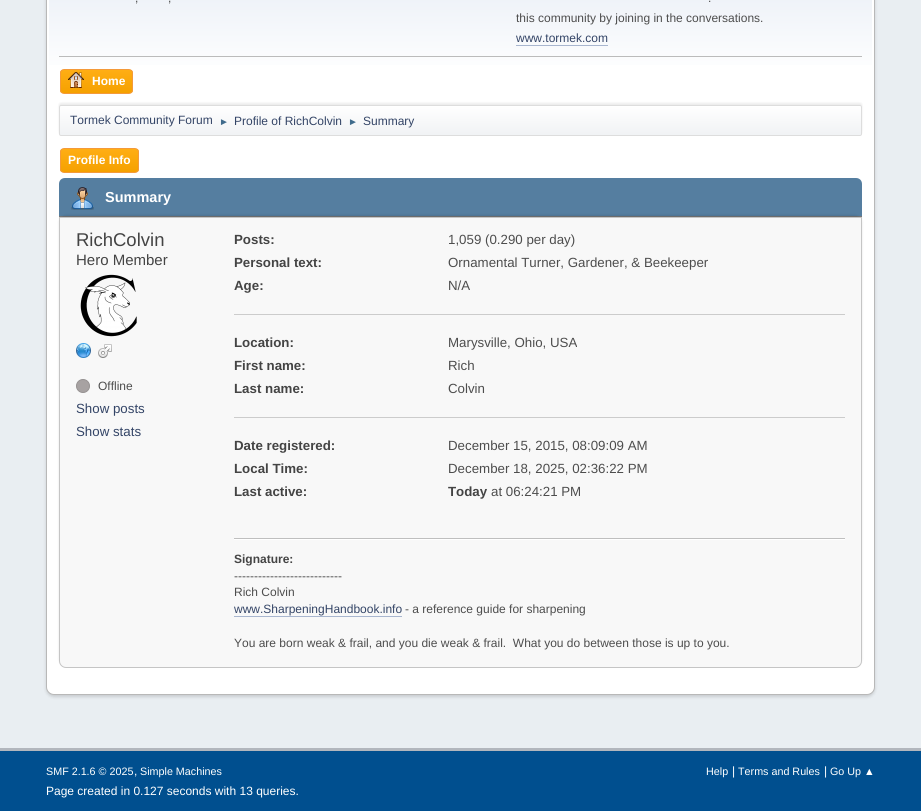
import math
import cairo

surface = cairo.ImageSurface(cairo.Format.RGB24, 921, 811)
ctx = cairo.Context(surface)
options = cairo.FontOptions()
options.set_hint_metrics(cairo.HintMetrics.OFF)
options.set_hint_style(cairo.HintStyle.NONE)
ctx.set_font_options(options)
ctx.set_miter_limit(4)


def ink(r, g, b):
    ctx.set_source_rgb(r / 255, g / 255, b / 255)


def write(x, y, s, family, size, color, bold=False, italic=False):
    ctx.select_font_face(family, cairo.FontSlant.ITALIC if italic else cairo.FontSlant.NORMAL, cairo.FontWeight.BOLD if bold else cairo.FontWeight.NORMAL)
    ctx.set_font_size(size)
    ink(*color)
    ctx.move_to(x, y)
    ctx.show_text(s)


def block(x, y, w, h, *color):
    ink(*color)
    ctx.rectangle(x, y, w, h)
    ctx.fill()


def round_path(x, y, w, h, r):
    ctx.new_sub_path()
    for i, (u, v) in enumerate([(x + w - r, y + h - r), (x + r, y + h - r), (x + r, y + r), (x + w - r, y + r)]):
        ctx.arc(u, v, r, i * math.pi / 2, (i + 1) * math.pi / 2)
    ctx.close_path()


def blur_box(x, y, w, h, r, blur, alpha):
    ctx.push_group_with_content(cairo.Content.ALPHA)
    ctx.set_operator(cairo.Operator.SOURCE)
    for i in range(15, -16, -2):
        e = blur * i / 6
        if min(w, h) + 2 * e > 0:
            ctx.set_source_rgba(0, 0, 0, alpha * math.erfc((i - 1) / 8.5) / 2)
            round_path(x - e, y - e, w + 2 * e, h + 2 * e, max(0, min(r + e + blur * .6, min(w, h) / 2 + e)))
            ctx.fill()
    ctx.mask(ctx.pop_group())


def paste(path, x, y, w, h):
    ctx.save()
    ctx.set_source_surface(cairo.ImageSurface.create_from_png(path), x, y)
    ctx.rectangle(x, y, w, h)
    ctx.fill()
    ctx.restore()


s1 = dict(family="Liberation Sans", size=12, color=(77, 77, 77))
s2 = dict(family="Liberation Sans", size=12, color=(51, 68, 102))
s3 = dict(family="Liberation Sans", size=12, color=(255, 255, 255), bold=True)
s4 = dict(family="Liberation Sans", size=10, color=(63, 107, 140))
s5 = dict(family="Liberation Sans", size=14.5, color=(255, 255, 255), bold=True)
s6 = dict(family="Liberation Sans", size=18.5, color=(68, 68, 68))
s7 = dict(family="Liberation Sans", size=15, color=(68, 68, 68))
s8 = dict(family="Liberation Sans", size=13.3, color=(51, 68, 102))
s9 = dict(family="Liberation Sans", size=13.3, color=(68, 68, 68), bold=True)
s10 = dict(family="Liberation Sans", size=13.3, color=(77, 77, 77))
s11 = dict(family="Liberation Sans", size=12, color=(68, 68, 68), bold=True)
s12 = dict(family="Liberation Sans", size=10.75, color=(255, 255, 255))
s13 = dict(family="Liberation Sans", size=12, color=(255, 255, 255))

ink(233, 238, 242)
ctx.paint()
ink(0, 0, 0)
blur_box(46, -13, 829, 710, 8, 1.5, 0.14)
ink(255, 255, 255)
round_path(46.5, -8.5, 828, 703, 7.5)
ctx.fill_preserve()
ink(184, 184, 184)
ctx.set_line_width(1)
ctx.stroke()
gradient = cairo.LinearGradient(461, -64, 461, 138)
gradient.add_color_stop_rgba(0, 0.886, 0.914, 0.953, 1)
gradient.add_color_stop_rgba(0.7, 1, 1, 1, 1)
ctx.set_source(gradient)
ctx.rectangle(49, 0, 823, 65)
ctx.fill()
block(59, 56, 803, 1, 187, 187, 187)
write(135, 2, ",", **s1)
write(168, 2, ",", **s1)
write(708, 2, ".", **s1)
write(516, 22, "this community by joining in the conversations.", **s1)
write(516, 42, "www.tormek.com", **s2)
block(516, 45, 92, 1, 168, 182, 207)
ctx.save()
round_path(60, 69, 73, 25, 4)
ctx.clip()
gradient = cairo.LinearGradient(97, 70, 97, 93)
gradient.add_color_stop_rgba(0, 1, 0.682, 0.078, 1)
gradient.add_color_stop_rgba(1, 0.961, 0.631, 0, 1)
ctx.set_source(gradient)
ctx.rectangle(60, 70, 73, 23)
ctx.fill()
ctx.restore()
round_path(60.5, 69.5, 72, 24, 3.5)
ink(244, 154, 58)
ctx.stroke()
paste("pic1.png", 68, 72, 16, 16)
write(92, 85, "Home", **s3)
ink(0, 0, 0)
blur_box(59, 103, 803, 31, 2, 1, 0.08)
ctx.save()
round_path(59, 105, 803, 31, 2)
ctx.clip()
gradient = cairo.LinearGradient(461, 106, 461, 135)
gradient.add_color_stop_rgba(0, 1, 1, 1, 1)
gradient.add_color_stop_rgba(0.95, 0.945, 0.953, 0.961, 1)
ctx.set_source(gradient)
ctx.rectangle(59, 106, 803, 29)
ctx.fill()
ctx.restore()
round_path(59.5, 105.5, 802, 30, 1.5)
ink(221, 221, 221)
ctx.stroke()
write(70, 124, "Tormek Community Forum", **s2)
write(219, 125, "►", **s4)
write(234, 125, "Profile of RichColvin", **s2)
write(348, 125, "►", **s4)
write(363, 125, "Summary", **s2)
ctx.save()
round_path(60, 148, 79, 25, 4)
ctx.clip()
gradient = cairo.LinearGradient(100, 149, 100, 172)
gradient.add_color_stop_rgba(0, 1, 0.682, 0.078, 1)
gradient.add_color_stop_rgba(1, 0.961, 0.631, 0, 1)
ctx.set_source(gradient)
ctx.rectangle(60, 149, 79, 23)
ctx.fill()
ctx.restore()
round_path(60.5, 148.5, 78, 24, 3.5)
ink(244, 154, 58)
ctx.stroke()
write(68, 164, "Profile Info", **s3)
ink(85, 126, 160)
ctx.new_path()
ctx.move_to(65, 178)
ctx.line_to(856, 178)
ctx.curve_to(859.5, 178, 862, 180.5, 862, 184)
ctx.line_to(862, 217)
ctx.line_to(59, 217)
ctx.line_to(59, 184)
ctx.curve_to(59, 180.5, 61.5, 178, 65, 178)
ctx.close_path()
ctx.fill()
block(59, 216, 803, 1, 119, 119, 119)
paste("pic2.png", 71, 187, 23, 23)
write(105, 202, "Summary", **s5)
ink(0, 0, 0)
blur_box(59, 215, 803, 451, 7, 1, 0.1)
ink(248, 248, 248)
ctx.new_path()
ctx.move_to(59.5, 217.5)
ctx.line_to(861.5, 217.5)
ctx.line_to(861.5, 661)
ctx.curve_to(861.5, 664.5, 858.5, 667.5, 855, 667.5)
ctx.line_to(66, 667.5)
ctx.curve_to(62.5, 667.5, 59.5, 664.5, 59.5, 661)
ctx.close_path()
ctx.fill_preserve()
ink(197, 197, 197)
ctx.stroke()
write(76, 246, "RichColvin", **s6)
write(76, 265, "Hero Member", **s7)
paste("pic3.png", 80, 274, 57, 63)
paste("pic4.png", 76, 343, 15, 15)
paste("pic5.png", 98, 344, 14, 14)
ink(167, 162, 162)
ctx.arc(83, 386, 6.5, 0, 2 * math.pi)
ctx.fill_preserve()
ink(150, 146, 146)
ctx.stroke()
write(98, 390, "Offline", **s1)
write(76, 413, "Show posts", **s8)
write(76, 436, "Show stats", **s8)
block(234, 314, 611, 1, 204, 204, 204)
write(234, 244, "Posts:", **s9)
write(448, 244, "1,059 (0.290 per day)", **s10)
write(234, 267, "Personal text:", **s9)
write(448, 267, "Ornamental Turner, Gardener, & Beekeeper", **s10)
write(234, 290, "Age:", **s9)
write(448, 290, "N/A", **s10)
block(234, 417, 611, 1, 204, 204, 204)
write(234, 347, "Location:", **s9)
write(448, 347, "Marysville, Ohio, USA", **s10)
write(234, 370, "First name:", **s9)
write(448, 370, "Rich", **s10)
write(234, 393, "Last name:", **s9)
write(448, 393, "Colvin", **s10)
write(234, 450, "Date registered:", **s9)
write(448, 450, "December 15, 2015, 08:09:09 AM", **s10)
write(234, 473, "Local Time:", **s9)
write(448, 473, "December 18, 2025, 02:36:22 PM", **s10)
write(234, 496, "Last active:", **s9)
write(448, 496, "Today", **s9)
write(491, 496, "at 06:24:21 PM", **s10)
block(234, 539, 611, 1, 255, 255, 255)
block(234, 538, 611, 1, 191, 191, 191)
write(234, 563, "Signature:", **s11)
write(234, 580, "---------------------------", **s1)
write(234, 596, "Rich Colvin", **s1)
write(234, 613, "www.SharpeningHandbook.info", **s2)
block(234, 616, 168, 1, 168, 182, 207)
write(405, 613, "- a reference guide for sharpening", **s1)
write(234, 647, "You are born weak & frail, and you die weak & frail.  What you do between those is up to you.", **s1)
block(0, 751, 921, 60, 0, 79, 143)
block(0, 748, 921, 3, 178, 182, 189)
write(46, 775, "SMF 2.1.6 © 2025", **s12)
write(134, 775, ",", **s13)
write(140, 775, "Simple Machines", **s12)
write(706, 775, "Help", **s12)
write(732, 775, "|", **s13)
write(738, 775, "Terms and Rules", **s12)
write(824, 775, "|", **s13)
write(830, 775, "Go Up ▲", **s12)
write(46, 795, "Page created in 0.127 seconds with 13 queries.", **s13)
surface.write_to_png("screenshot.png")
